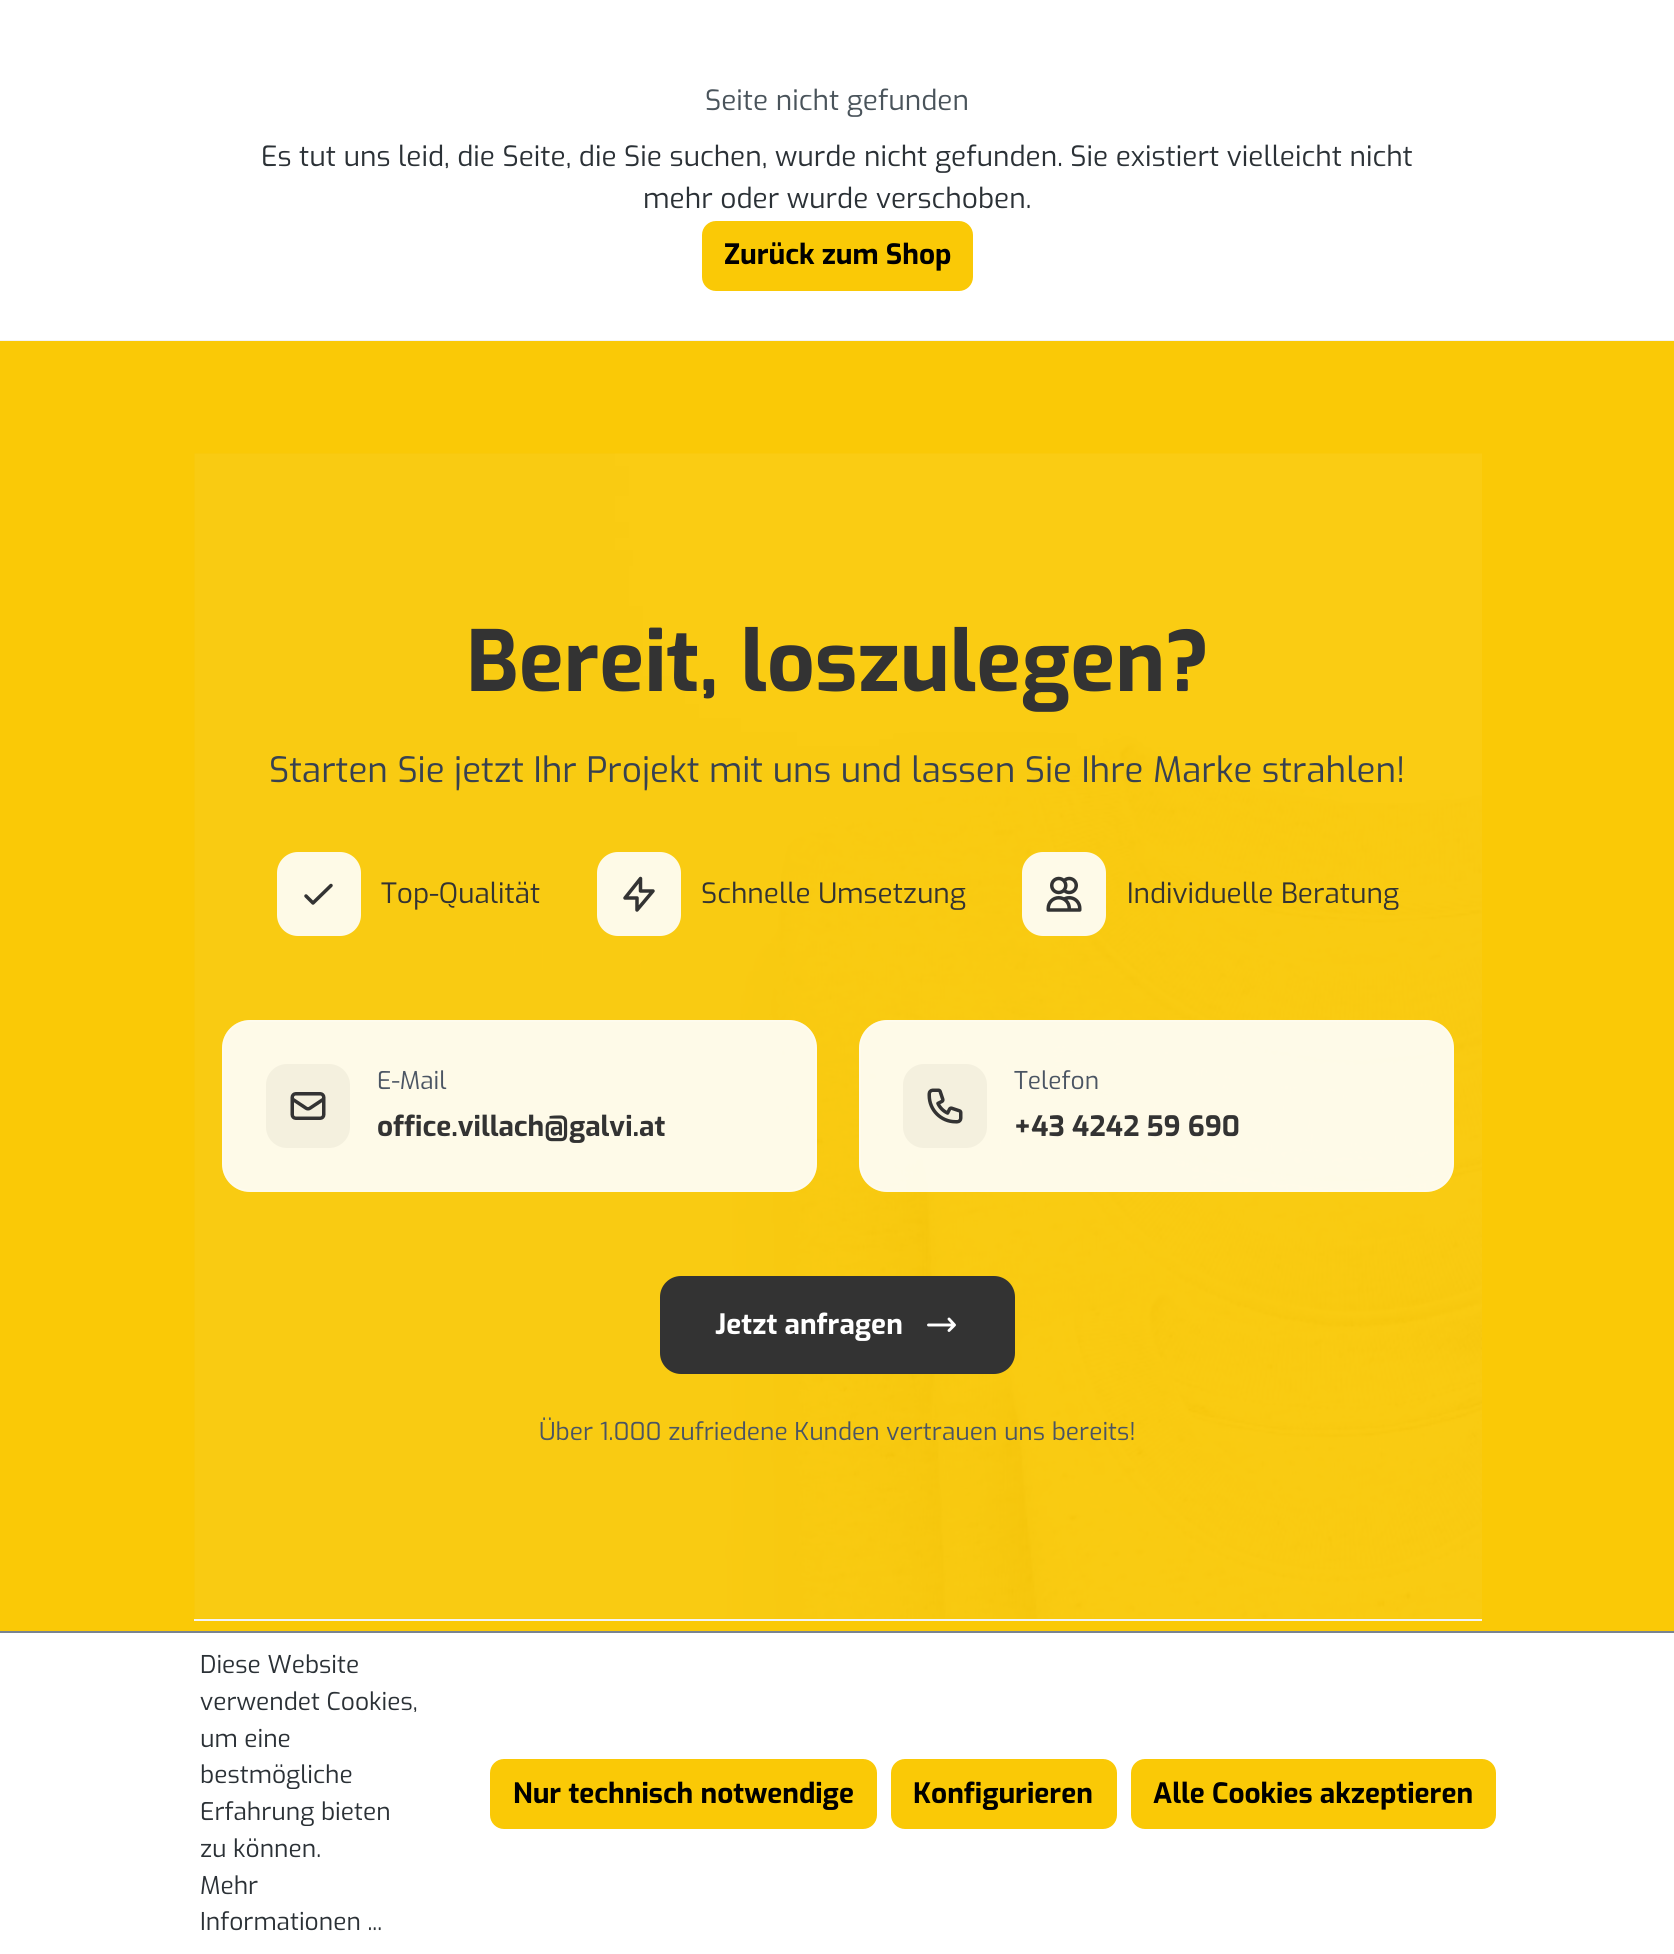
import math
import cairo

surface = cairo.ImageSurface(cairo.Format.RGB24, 1674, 1954)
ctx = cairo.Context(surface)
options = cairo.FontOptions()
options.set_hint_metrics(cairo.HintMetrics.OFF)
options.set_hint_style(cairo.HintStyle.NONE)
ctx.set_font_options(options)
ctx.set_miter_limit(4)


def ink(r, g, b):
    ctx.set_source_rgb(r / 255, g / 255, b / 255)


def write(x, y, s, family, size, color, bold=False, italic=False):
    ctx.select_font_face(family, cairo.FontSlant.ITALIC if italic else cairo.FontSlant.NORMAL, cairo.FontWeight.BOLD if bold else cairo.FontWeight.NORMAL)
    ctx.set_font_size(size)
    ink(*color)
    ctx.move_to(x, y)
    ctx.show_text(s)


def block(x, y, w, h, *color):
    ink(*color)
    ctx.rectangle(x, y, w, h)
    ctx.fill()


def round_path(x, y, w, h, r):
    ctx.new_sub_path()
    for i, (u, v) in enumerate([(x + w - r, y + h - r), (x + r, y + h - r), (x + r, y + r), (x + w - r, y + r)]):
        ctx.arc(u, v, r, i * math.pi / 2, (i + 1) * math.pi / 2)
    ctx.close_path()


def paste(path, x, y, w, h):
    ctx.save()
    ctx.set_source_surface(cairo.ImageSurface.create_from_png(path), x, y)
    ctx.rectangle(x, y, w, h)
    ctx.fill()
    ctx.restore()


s1 = dict(family="Exo Thin", size=28, color=(74, 84, 91))
s2 = dict(family="Exo Thin", size=28, color=(43, 49, 54))
s3 = dict(family="Exo 2 Thin", size=28, color=(0, 0, 0))
s4 = dict(family="Exo 2 Thin", size=84, color=(51, 51, 51))
s5 = dict(family="Exo Thin", size=35, color=(55, 65, 81))
s6 = dict(family="Exo Thin", size=28, color=(51, 51, 51))
s7 = dict(family="Exo Thin", size=24.5, color=(75, 85, 99))
s8 = dict(family="Exo 2 Thin", size=28, color=(51, 51, 51))
s9 = dict(family="Exo 2 Thin", size=28, color=(255, 255, 255))
s10 = dict(family="Exo Thin", size=24.5, color=(43, 49, 54))

ink(255, 255, 255)
ctx.paint()
write(705, 110, "Seite nicht gefunden", **s1)
write(261, 166, "Es tut uns leid, die Seite, die Sie suchen, wurde nicht gefunden. Sie existiert vielleicht nicht", **s2)
write(643, 208, "mehr oder wurde verschoben.", **s2)
ink(250, 201, 6)
round_path(703, 222, 269, 68, 13)
ctx.fill_preserve()
ctx.stroke()
write(724, 264, "Zurück zum Shop", **s3)
block(0, 340, 1674, 1, 243, 243, 243)
block(0, 341, 1674, 1290, 250, 201, 6)
paste("pic1.png", 194, 453, 1288, 1166)
write(466, 691, "Bereit, loszulegen?", **s4)
write(269, 782, "Starten Sie jetzt Ihr Projekt mit uns und lassen Sie Ihre Marke strahlen!", **s5)
ink(254, 250, 231)
round_path(277, 852, 84, 84, 21)
ctx.fill()
ctx.new_path()
ctx.move_to(306, 896)
ctx.line_to(313, 903)
ctx.line_to(331, 885.5)
ink(51, 51, 51)
ctx.set_line_width(3.5)
ctx.set_line_cap(cairo.LineCap.ROUND)
ctx.set_line_join(cairo.LineJoin.ROUND)
ctx.stroke()
write(381, 903, "Top-Qualität", **s6)
ink(254, 250, 231)
round_path(597, 852, 84, 84, 21)
ctx.fill()
ctx.new_path()
ctx.move_to(640.5, 891)
ctx.line_to(640.5, 878.5)
ctx.line_to(625, 898)
ctx.line_to(637, 898)
ctx.line_to(637, 910)
ctx.line_to(653, 891)
ctx.close_path()
ink(51, 51, 51)
ctx.stroke()
write(701, 903, "Schnelle Umsetzung", **s6)
ctx.set_source_rgba(1, 1, 1, 0.9)
round_path(1022, 852, 84, 84, 21)
ctx.fill()
paste("pic2.png", 1046, 876, 36, 36)
write(1127, 903, "Individuelle Beratung", **s6)
ctx.set_source_rgba(1, 1, 1, 0.9)
round_path(222, 1020, 595, 172, 28)
ctx.fill()
round_path(223, 1021, 593, 170, 27)
ctx.set_source_rgba(1, 1, 1, 0.2)
ctx.set_line_width(2)
ctx.set_line_cap(cairo.LineCap.BUTT)
ctx.set_line_join(cairo.LineJoin.MITER)
ctx.stroke()
ink(244, 240, 222)
round_path(266, 1064, 84, 84, 21)
ctx.fill()
paste("pic3.png", 290, 1092, 36, 28)
write(377, 1089, "E-Mail", **s7)
write(377, 1136, "office.villach@galvi.at", **s8)
ctx.set_source_rgba(1, 1, 1, 0.9)
round_path(859, 1020, 595, 172, 28)
ctx.fill()
round_path(860, 1021, 593, 170, 27)
ctx.set_source_rgba(1, 1, 1, 0.2)
ctx.stroke()
ink(244, 240, 222)
round_path(903, 1064, 84, 84, 21)
ctx.fill()
paste("pic4.png", 927, 1088, 36, 36)
write(1014, 1089, "Telefon", **s7)
write(1014, 1136, "+43 4242 59 690", **s8)
round_path(660, 1276, 355, 98, 21)
ctx.fill()
write(715, 1334, "Jetzt anfragen", **s9)
ctx.new_path()
ctx.move_to(949, 1319)
ctx.line_to(954.5, 1325)
ctx.move_to(954.5, 1325)
ctx.line_to(949, 1330.5)
ctx.move_to(954.5, 1325)
ctx.line_to(928.5, 1325)
ctx.set_line_width(2.9)
ctx.set_line_cap(cairo.LineCap.ROUND)
ctx.set_line_join(cairo.LineJoin.ROUND)
ctx.stroke()
write(539, 1440, "Über 1.000 zufriedene Kunden vertrauen uns bereits!", **s7)
block(194, 1619, 1288, 2, 243, 244, 246)
block(0, 1631, 1674, 2, 121, 132, 144)
write(200, 1673, "Diese Website", **s10)
write(200, 1710, "verwendet Cookies,", **s10)
write(200, 1747, "um eine", **s10)
write(200, 1783, "bestmögliche", **s10)
write(200, 1820, "Erfahrung bieten", **s10)
write(200, 1857, "zu können.", **s10)
write(200, 1894, "Mehr", **s10)
write(200, 1930, "Informationen ...", **s10)
ink(250, 201, 6)
round_path(491, 1760, 385, 68, 13)
ctx.fill_preserve()
ctx.set_line_width(2)
ctx.set_line_cap(cairo.LineCap.BUTT)
ctx.set_line_join(cairo.LineJoin.MITER)
ctx.stroke()
write(513, 1803, "Nur technisch notwendige", **s3)
ink(250, 201, 6)
round_path(892, 1760, 224, 68, 13)
ctx.fill_preserve()
ctx.stroke()
write(913, 1803, "Konfigurieren", **s3)
ink(250, 201, 6)
round_path(1132, 1760, 363, 68, 13)
ctx.fill_preserve()
ctx.stroke()
write(1153, 1803, "Alle Cookies akzeptieren", **s3)
surface.write_to_png("screenshot.png")
